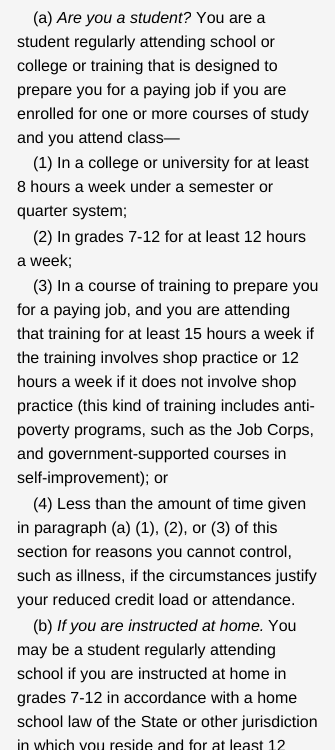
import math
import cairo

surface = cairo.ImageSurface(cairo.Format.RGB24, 335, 750)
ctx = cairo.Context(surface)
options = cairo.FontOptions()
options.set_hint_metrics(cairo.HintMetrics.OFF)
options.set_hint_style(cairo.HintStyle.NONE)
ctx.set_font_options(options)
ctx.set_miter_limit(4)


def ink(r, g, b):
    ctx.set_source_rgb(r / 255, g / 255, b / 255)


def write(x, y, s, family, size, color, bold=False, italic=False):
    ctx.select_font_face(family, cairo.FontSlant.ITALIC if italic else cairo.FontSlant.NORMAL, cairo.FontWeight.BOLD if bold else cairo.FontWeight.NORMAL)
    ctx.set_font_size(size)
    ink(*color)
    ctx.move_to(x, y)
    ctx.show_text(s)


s1 = dict(family="Liberation Sans", size=16, color=(0, 0, 0))
s2 = dict(family="Liberation Sans", size=16, color=(0, 0, 0), italic=True)

ink(245, 245, 245)
ctx.paint()
write(33, 23, "(a)", **s1)
write(57, 23, "Are you a student?", **s2)
write(196, 23, "You are a", **s1)
write(17, 47, "student regularly attending school or", **s1)
write(17, 71, "college or training that is designed to", **s1)
write(17, 95, "prepare you for a paying job if you are", **s1)
write(17, 119, "enrolled for one or more courses of study", **s1)
write(17, 143, "and you attend class—", **s1)
write(33, 168, "(1) In a college or university for at least", **s1)
write(17, 192, "8 hours a week under a semester or", **s1)
write(17, 216, "quarter system;", **s1)
write(33, 242, "(2) In grades 7-12 for at least 12 hours", **s1)
write(17, 266, "a week;", **s1)
write(33, 291, "(3) In a course of training to prepare you", **s1)
write(17, 315, "for a paying job, and you are attending", **s1)
write(17, 339, "that training for at least 15 hours a week if", **s1)
write(17, 363, "the training involves shop practice or 12", **s1)
write(17, 387, "hours a week if it does not involve shop", **s1)
write(17, 411, "practice (this kind of training includes anti-", **s1)
write(17, 435, "poverty programs, such as the Job Corps,", **s1)
write(17, 459, "and government-supported courses in", **s1)
write(17, 483, "self-improvement); or", **s1)
write(33, 509, "(4) Less than the amount of time given", **s1)
write(17, 533, "in paragraph (a) (1), (2), or (3) of this", **s1)
write(17, 557, "section for reasons you cannot control,", **s1)
write(17, 581, "such as illness, if the circumstances justify", **s1)
write(17, 605, "your reduced credit load or attendance.", **s1)
write(33, 631, "(b)", **s1)
write(57, 631, "If you are instructed at home.", **s2)
write(268, 631, "You", **s1)
write(17, 655, "may be a student regularly attending", **s1)
write(17, 679, "school if you are instructed at home in", **s1)
write(17, 703, "grades 7-12 in accordance with a home", **s1)
write(17, 727, "school law of the State or other jurisdiction", **s1)
write(17, 751, "in which you reside and for at least 12", **s1)
surface.write_to_png("screenshot.png")
